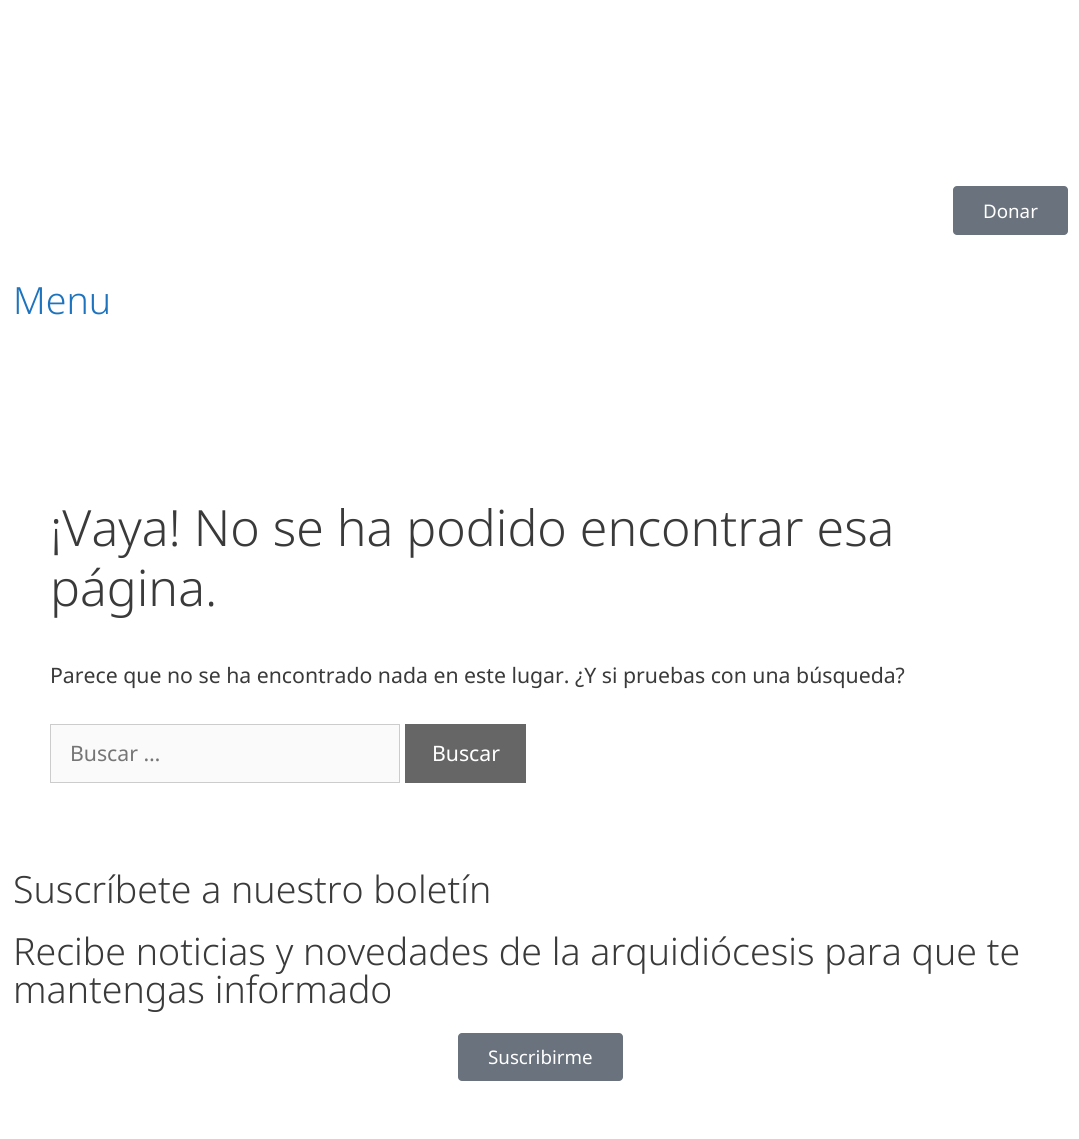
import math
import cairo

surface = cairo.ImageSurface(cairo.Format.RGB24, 1079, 1139)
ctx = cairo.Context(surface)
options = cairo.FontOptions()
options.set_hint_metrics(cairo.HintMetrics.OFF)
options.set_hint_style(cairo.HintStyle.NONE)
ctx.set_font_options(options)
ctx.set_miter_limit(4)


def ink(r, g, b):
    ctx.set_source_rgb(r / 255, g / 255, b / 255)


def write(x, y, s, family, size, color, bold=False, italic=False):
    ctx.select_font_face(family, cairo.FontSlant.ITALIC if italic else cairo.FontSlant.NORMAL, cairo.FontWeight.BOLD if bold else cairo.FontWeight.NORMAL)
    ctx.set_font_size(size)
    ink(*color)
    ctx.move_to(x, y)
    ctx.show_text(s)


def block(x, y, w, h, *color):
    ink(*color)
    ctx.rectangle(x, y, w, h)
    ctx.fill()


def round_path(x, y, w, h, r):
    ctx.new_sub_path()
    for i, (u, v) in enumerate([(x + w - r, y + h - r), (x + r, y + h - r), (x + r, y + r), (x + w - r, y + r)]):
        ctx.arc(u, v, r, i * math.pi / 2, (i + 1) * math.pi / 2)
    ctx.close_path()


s1 = dict(family="Noto Sans", size=18.75, color=(255, 255, 255))
s2 = dict(family="Noto Sans Light", size=37.5, color=(30, 115, 190))
s3 = dict(family="Noto Sans Light", size=50, color=(58, 58, 58))
s4 = dict(family="Noto Sans", size=21.25, color=(58, 58, 58))
s5 = dict(family="Noto Sans", size=21.25, color=(117, 117, 117))
s6 = dict(family="Noto Sans", size=21.25, color=(255, 255, 255))
s7 = dict(family="Noto Sans Light", size=37.5, color=(58, 58, 58))

ink(255, 255, 255)
ctx.paint()
ink(105, 114, 125)
round_path(953, 186, 115, 49, 4)
ctx.fill()
write(983, 218, "Donar", **s1)
write(13, 314, "Menu", **s2)
write(50, 546, "¡Vaya! No se ha podido encontrar esa", **s3)
write(50, 606, "página.", **s3)
write(50, 683, "Parece que no se ha encontrado nada en este lugar. ¿Y si pruebas con una búsqueda?", **s4)
ink(250, 250, 250)
ctx.rectangle(50.5, 724.5, 349, 58)
ctx.fill_preserve()
ink(204, 204, 204)
ctx.set_line_width(1)
ctx.stroke()
write(70, 761, "Buscar …", **s5)
block(405, 724, 121, 59, 102, 102, 102)
write(432, 761, "Buscar", **s6)
write(13, 903, "Suscríbete a nuestro boletín", **s7)
write(13, 965, "Recibe noticias y novedades de la arquidiócesis para que te", **s7)
write(13, 1003, "mantengas informado", **s7)
ink(105, 114, 125)
round_path(458, 1033, 165, 48, 4)
ctx.fill()
write(488, 1064, "Suscribirme", **s1)
surface.write_to_png("screenshot.png")
